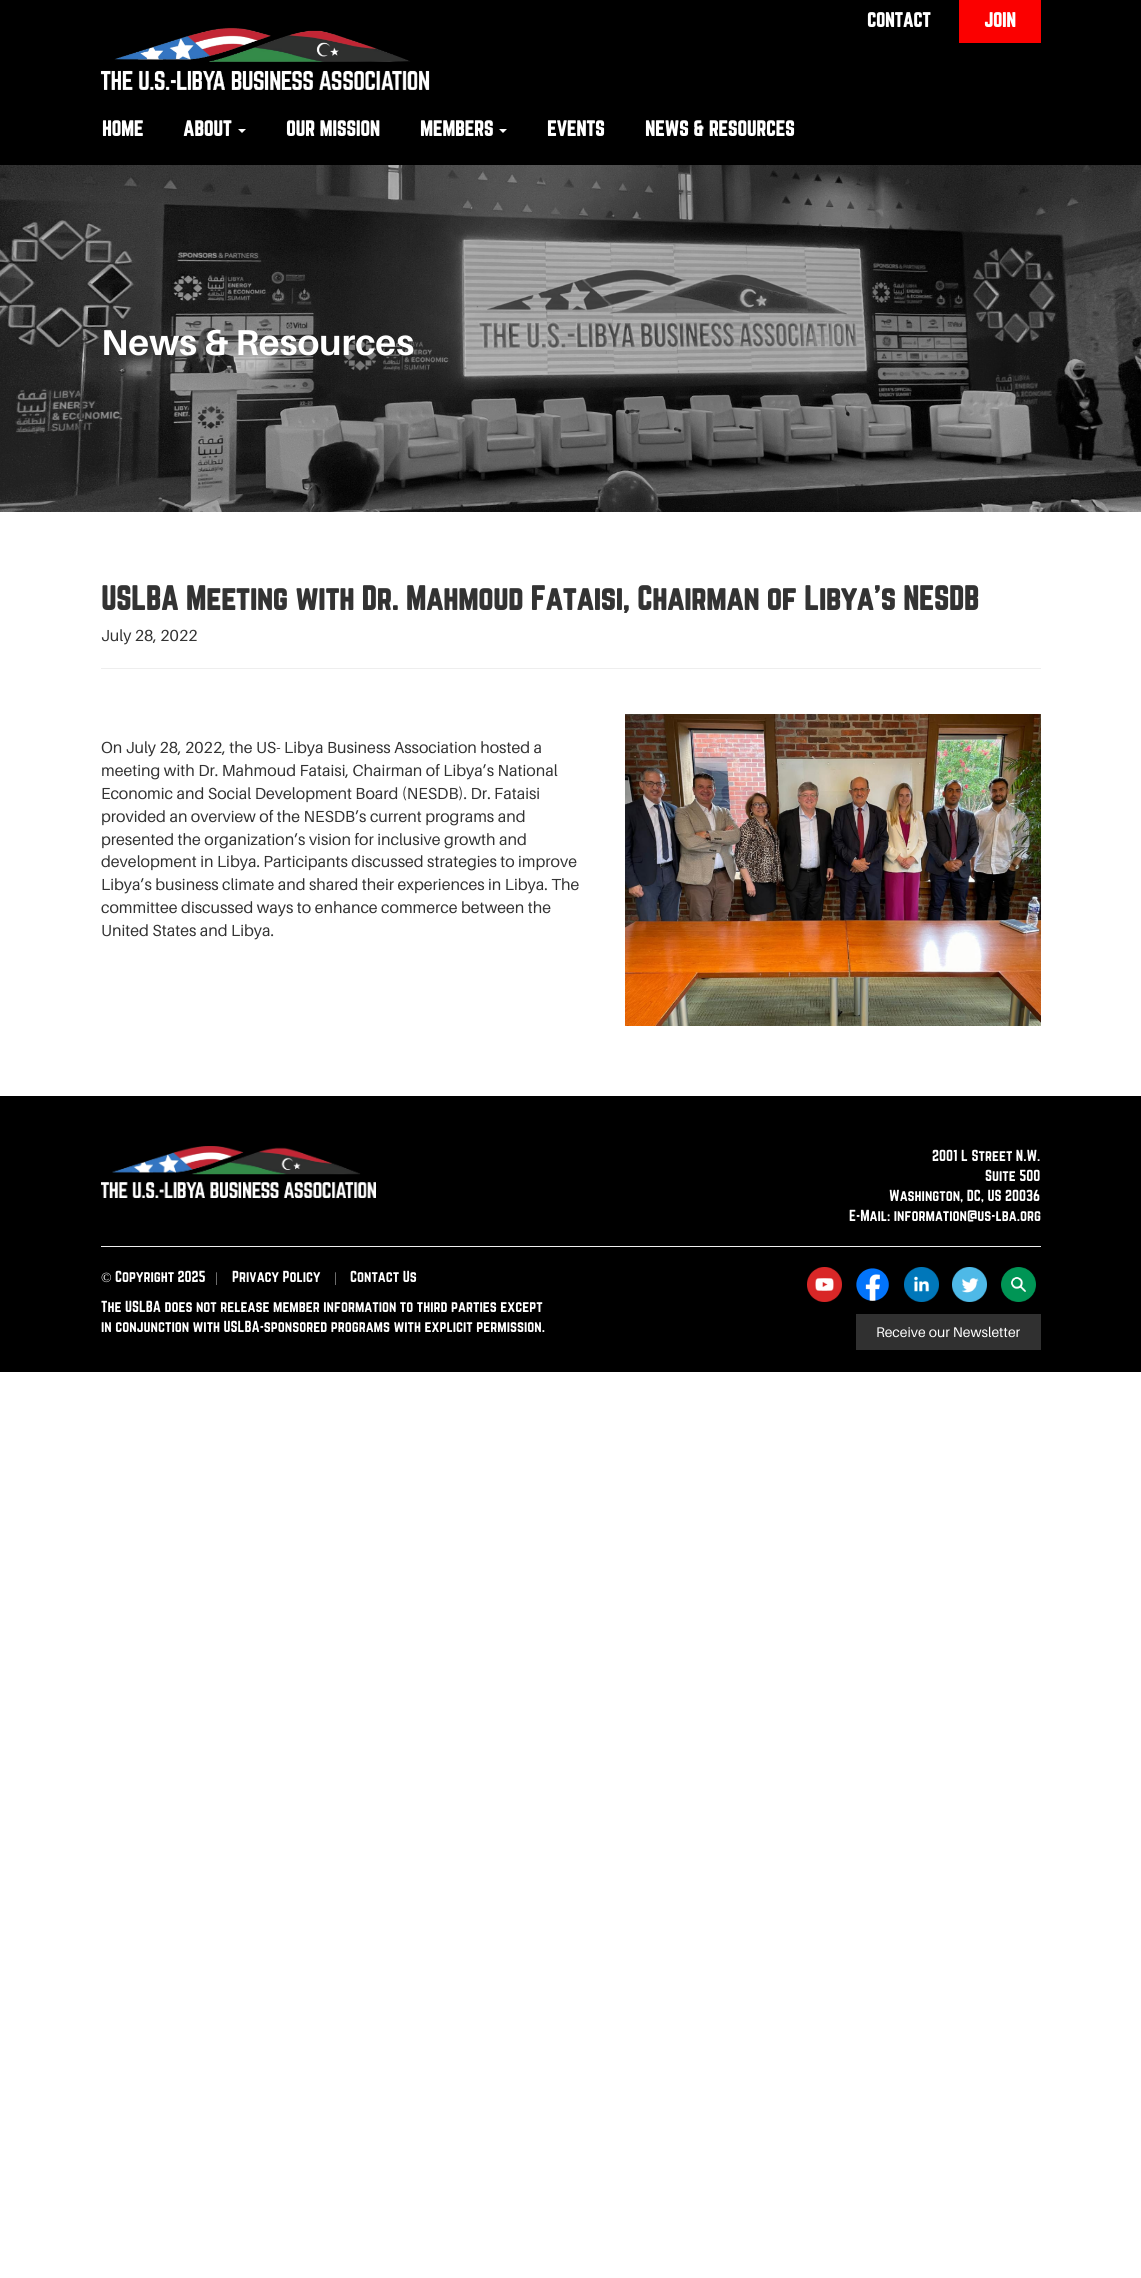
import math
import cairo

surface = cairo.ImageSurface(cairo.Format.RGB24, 1141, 2278)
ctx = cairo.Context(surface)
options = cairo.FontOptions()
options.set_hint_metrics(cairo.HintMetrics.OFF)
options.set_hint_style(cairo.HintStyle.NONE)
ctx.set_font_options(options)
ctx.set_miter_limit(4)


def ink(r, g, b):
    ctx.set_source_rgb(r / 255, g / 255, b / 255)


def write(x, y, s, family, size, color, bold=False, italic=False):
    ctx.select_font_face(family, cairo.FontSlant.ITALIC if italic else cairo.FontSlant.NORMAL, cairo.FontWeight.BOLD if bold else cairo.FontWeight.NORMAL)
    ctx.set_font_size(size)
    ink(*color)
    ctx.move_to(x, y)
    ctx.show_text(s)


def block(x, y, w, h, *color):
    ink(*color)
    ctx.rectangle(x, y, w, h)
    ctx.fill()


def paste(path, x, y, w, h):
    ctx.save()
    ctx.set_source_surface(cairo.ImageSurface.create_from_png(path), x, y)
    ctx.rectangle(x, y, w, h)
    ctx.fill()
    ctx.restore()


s1 = dict(family="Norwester", size=18, color=(255, 255, 255), bold=True)
s2 = dict(family="Norwester", size=19, color=(255, 255, 255), bold=True)
s3 = dict(family="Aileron", size=36, color=(255, 255, 255), bold=True)
s4 = dict(family="Norwester", size=30, color=(51, 51, 51), bold=True)
s5 = dict(family="Aileron", size=16, color=(51, 51, 51))
s6 = dict(family="Norwester", size=14, color=(255, 255, 255))
s7 = dict(family="Liberation Serif", size=14, color=(255, 255, 255))
s8 = dict(family="Liberation Serif", size=14, color=(153, 153, 153))
s9 = dict(family="Aileron", size=14, color=(255, 255, 255))

ink(255, 255, 255)
ctx.paint()
block(0, 0, 1141, 165, 0, 0, 0)
write(867, 27, "CONTACT", **s1)
block(959, 0, 82, 43, 251, 0, 0)
write(984, 27, "JOIN", **s1)
paste("pic1.png", 100, 27, 330, 63)
write(102, 136, "HOME", **s2)
write(183, 136, "ABOUT", **s2)
ctx.new_path()
ctx.move_to(238, 129)
ctx.line_to(246, 129)
ctx.line_to(242, 133)
ctx.close_path()
ctx.fill()
write(286, 136, "OUR MISSION", **s2)
write(420, 136, "MEMBERS", **s2)
ctx.new_path()
ctx.move_to(499, 129)
ctx.line_to(507, 129)
ctx.line_to(503, 133)
ctx.close_path()
ctx.fill()
write(547, 136, "EVENTS", **s2)
write(645, 136, "NEWS & RESOURCES", **s2)
paste("pic2.png", 0, 165, 1141, 347)
write(101, 355, "News & Resources", **s3)
write(101, 610, "USLBA Meeting with Dr. Mahmoud Fataisi, Chairman of Libya’s NESDB", **s4)
write(101, 641, "July 28, 2022", **s5)
block(101, 668, 940, 1, 238, 238, 238)
write(101, 753, "On July 28, 2022, the US- Libya Business Association hosted a", **s5)
paste("pic3.png", 625, 714, 416, 312)
write(101, 776, "meeting with Dr. Mahmoud Fataisi, Chairman of Libya’s National", **s5)
write(101, 799, "Economic and Social Development Board (NESDB). Dr. Fataisi", **s5)
write(101, 822, "provided an overview of the NESDB’s current programs and", **s5)
write(101, 845, "presented the organization’s vision for inclusive growth and", **s5)
write(101, 867, "development in Libya. Participants discussed strategies to improve", **s5)
write(101, 890, "Libya’s business climate and shared their experiences in Libya. The", **s5)
write(101, 913, "committee discussed ways to enhance commerce between the", **s5)
write(101, 936, "United States and Libya.", **s5)
block(0, 1096, 1141, 276, 0, 0, 0)
paste("pic4.png", 101, 1146, 275, 52)
write(932, 1161, "2001 L Street N.W.", **s6)
write(985, 1181, "Suite 500", **s6)
write(889, 1201, "Washington, DC, US 20036", **s6)
write(849, 1221, "E-Mail: information@us-lba.org", **s6)
block(101, 1246, 940, 1, 238, 238, 238)
write(101, 1282, "©", **s7)
write(115, 1282, "Copyright 2025", **s6)
write(215, 1282, "|", **s8)
write(232, 1282, "Privacy Policy", **s6)
write(334, 1282, "|", **s8)
write(350, 1282, "Contact Us", **s6)
write(101, 1312, "The USLBA does not release member information to third parties except", **s6)
write(101, 1332, "in conjunction with USLBA-sponsored programs with explicit permission.", **s6)
paste("pic5.png", 807, 1267, 35, 35)
paste("pic6.png", 856, 1268, 33, 33)
paste("pic7.png", 904, 1267, 35, 35)
paste("pic8.png", 952, 1267, 35, 35)
paste("pic9.png", 1001, 1267, 35, 35)
block(856, 1314, 185, 36, 48, 48, 48)
write(876, 1337, "Receive our Newsletter", **s9)
surface.write_to_png("screenshot.png")
